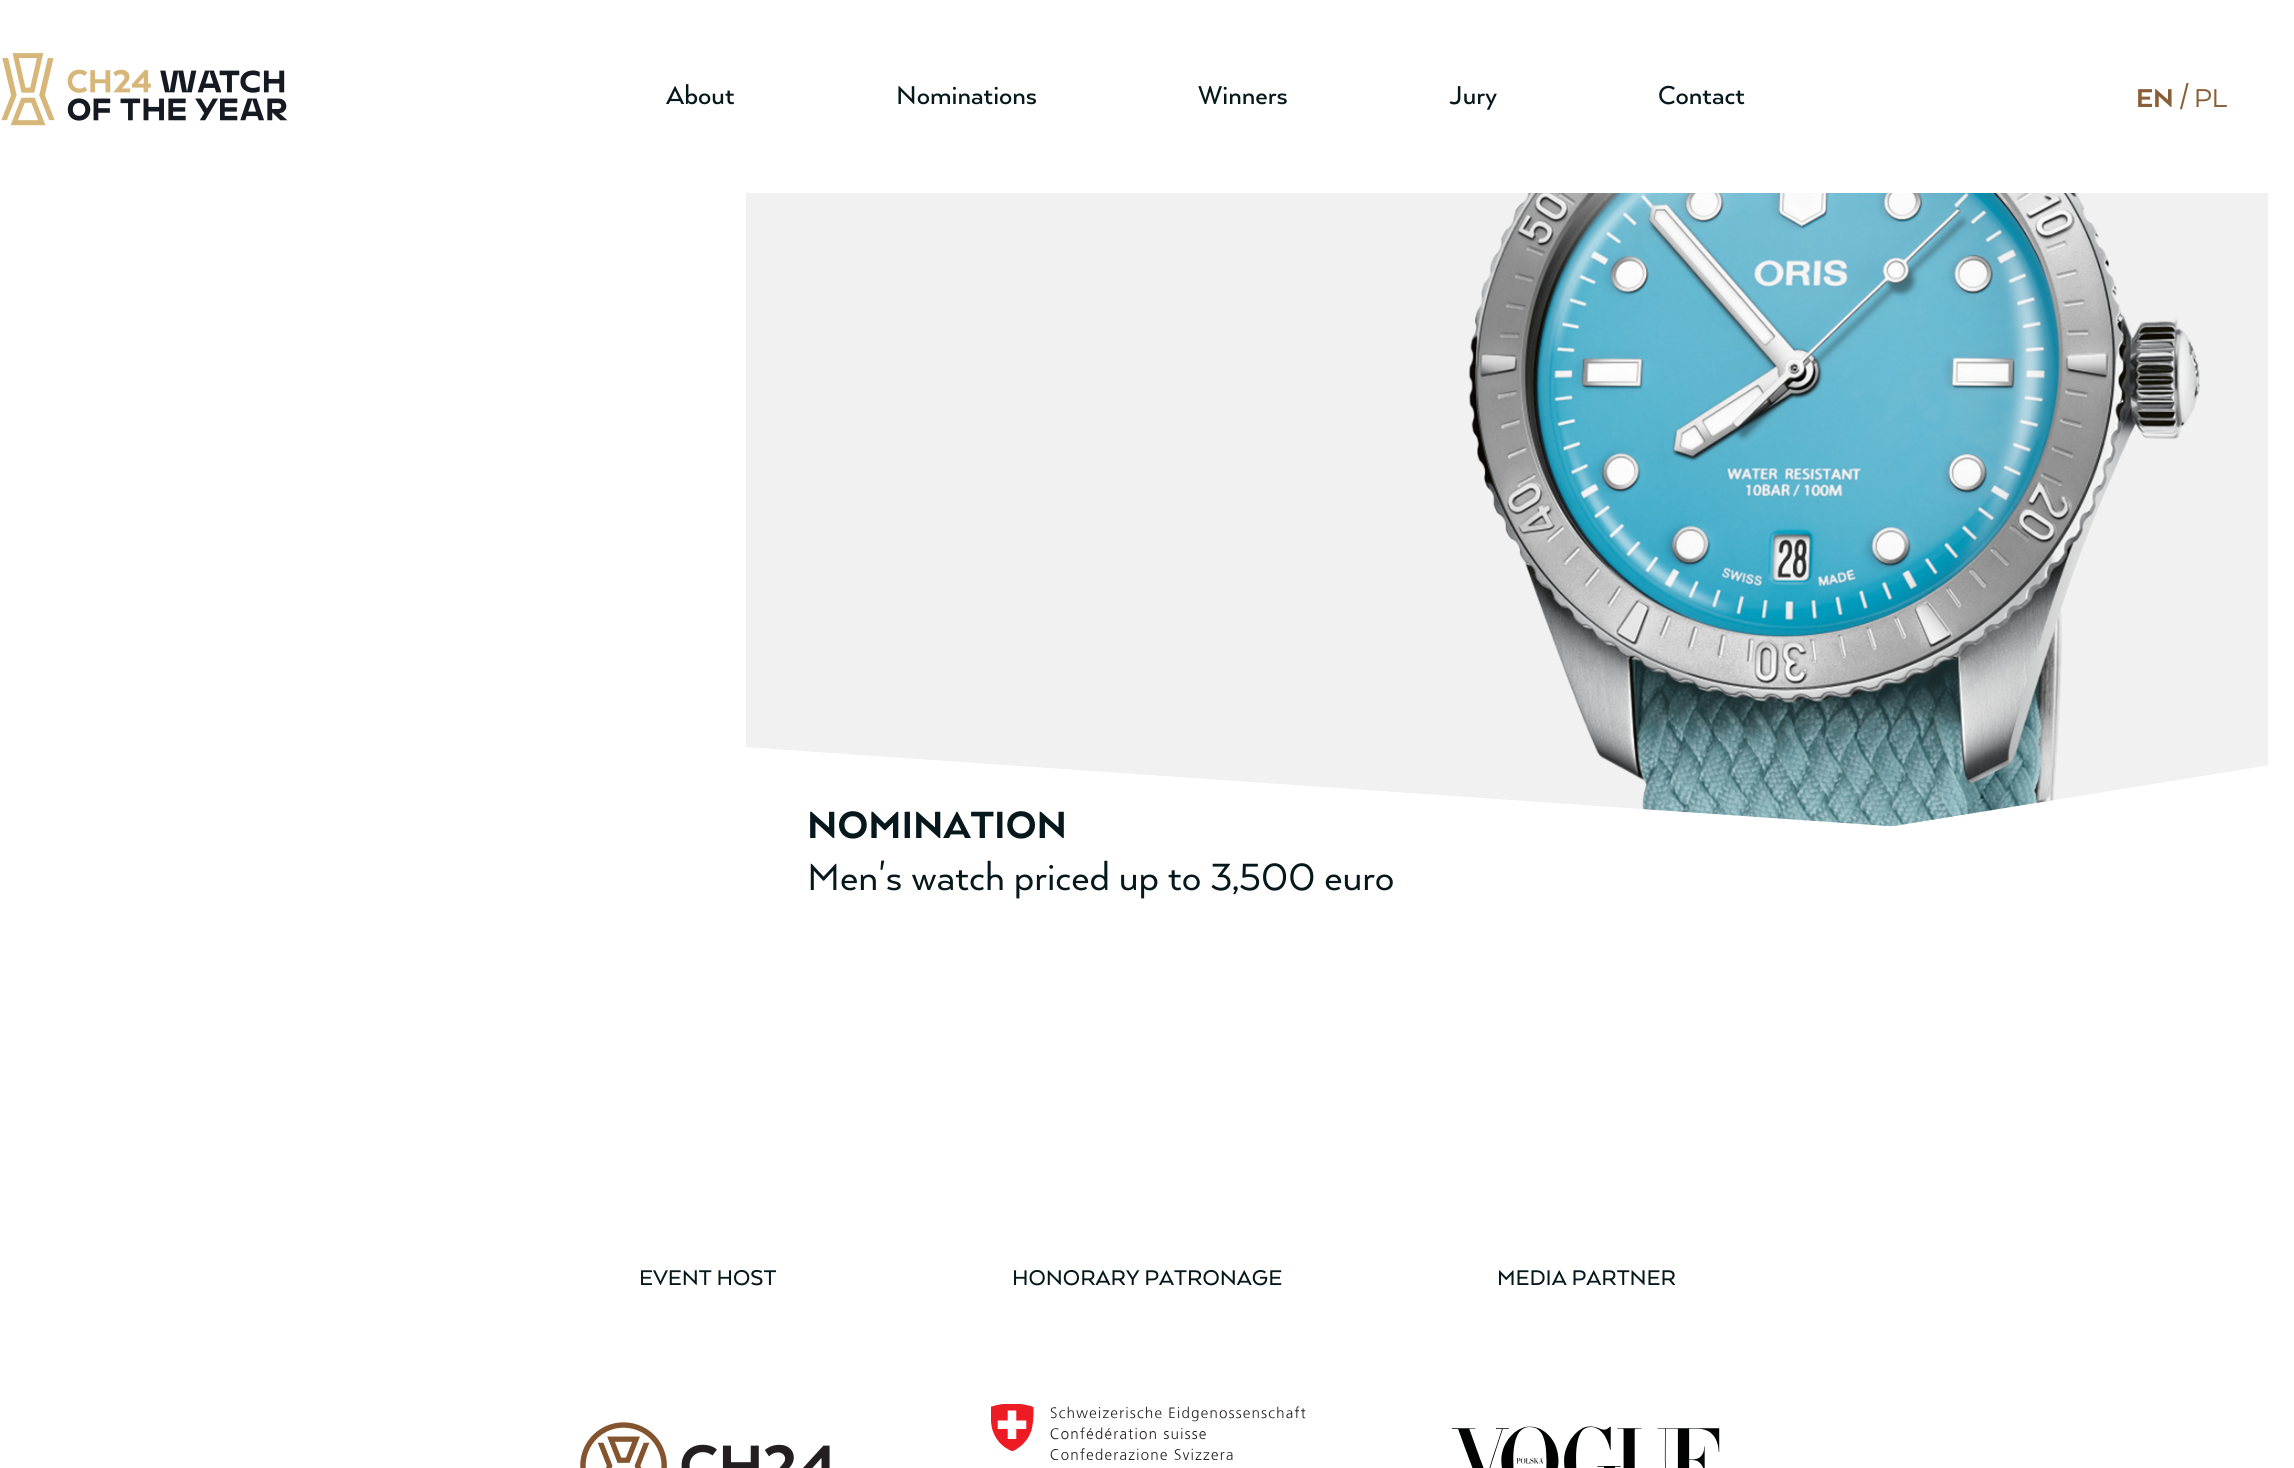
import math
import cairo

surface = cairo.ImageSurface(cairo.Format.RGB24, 2294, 1468)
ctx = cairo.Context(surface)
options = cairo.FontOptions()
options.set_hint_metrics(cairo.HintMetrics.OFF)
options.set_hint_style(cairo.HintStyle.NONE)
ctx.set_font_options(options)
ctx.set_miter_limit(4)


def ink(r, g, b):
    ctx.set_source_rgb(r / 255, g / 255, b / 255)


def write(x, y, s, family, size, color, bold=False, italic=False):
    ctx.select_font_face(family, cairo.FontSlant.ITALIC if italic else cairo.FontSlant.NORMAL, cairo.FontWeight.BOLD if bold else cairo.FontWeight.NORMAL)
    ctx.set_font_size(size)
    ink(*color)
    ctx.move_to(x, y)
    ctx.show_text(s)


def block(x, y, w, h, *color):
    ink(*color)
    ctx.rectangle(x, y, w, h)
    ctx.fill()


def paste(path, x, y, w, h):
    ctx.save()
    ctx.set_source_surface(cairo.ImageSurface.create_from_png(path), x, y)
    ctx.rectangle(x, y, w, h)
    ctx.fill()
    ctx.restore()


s1 = dict(family="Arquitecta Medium", size=29.75, color=(6, 24, 28))
s2 = dict(family="Arquitecta Black", size=29.75, color=(137, 95, 55))
s3 = dict(family="Arquitecta", size=30, color=(137, 95, 55))
s4 = dict(family="Arquitecta", size=29.75, color=(137, 95, 55))
s5 = dict(family="Arquitecta Black", size=43.75, color=(6, 24, 28))
s6 = dict(family="Arquitecta", size=43.75, color=(6, 24, 28))
s7 = dict(family="Arquitecta Medium", size=24.5, color=(6, 24, 28))

ink(255, 255, 255)
ctx.paint()
paste("pic1.png", 1, 53, 287, 73)
write(666, 104, "About", **s1)
write(896, 104, "Nominations", **s1)
write(1198, 104, "Winners", **s1)
write(1449, 104, "Jury", **s1)
write(1658, 104, "Contact", **s1)
write(2136, 107, "EN", **s2)
write(2179, 104, "/", **s3)
write(2194, 107, "PL", **s4)
block(746, 193, 1522, 617, 241, 241, 241)
paste("pic2.png", 1468, 193, 732, 634)
ink(255, 255, 255)
ctx.new_path()
ctx.move_to(2263, 852)
ctx.line_to(744, 852)
ctx.line_to(744, 747)
ctx.close_path()
ctx.fill()
ctx.new_path()
ctx.move_to(2270, 852)
ctx.line_to(1734, 852)
ctx.line_to(2270, 765)
ctx.close_path()
ctx.fill()
write(807, 838, "NOMINATION", **s5)
write(807, 890, "Men's watch priced up to 3,500 euro", **s6)
write(639, 1285, "EVENT HOST", **s7)
paste("pic3.png", 580, 1422, 250, 46)
write(1012, 1285, "HONORARY PATRONAGE", **s7)
paste("pic4.png", 991, 1404, 315, 56)
write(1497, 1285, "MEDIA PARTNER", **s7)
paste("pic5.png", 1451, 1426, 269, 42)
surface.write_to_png("screenshot.png")
